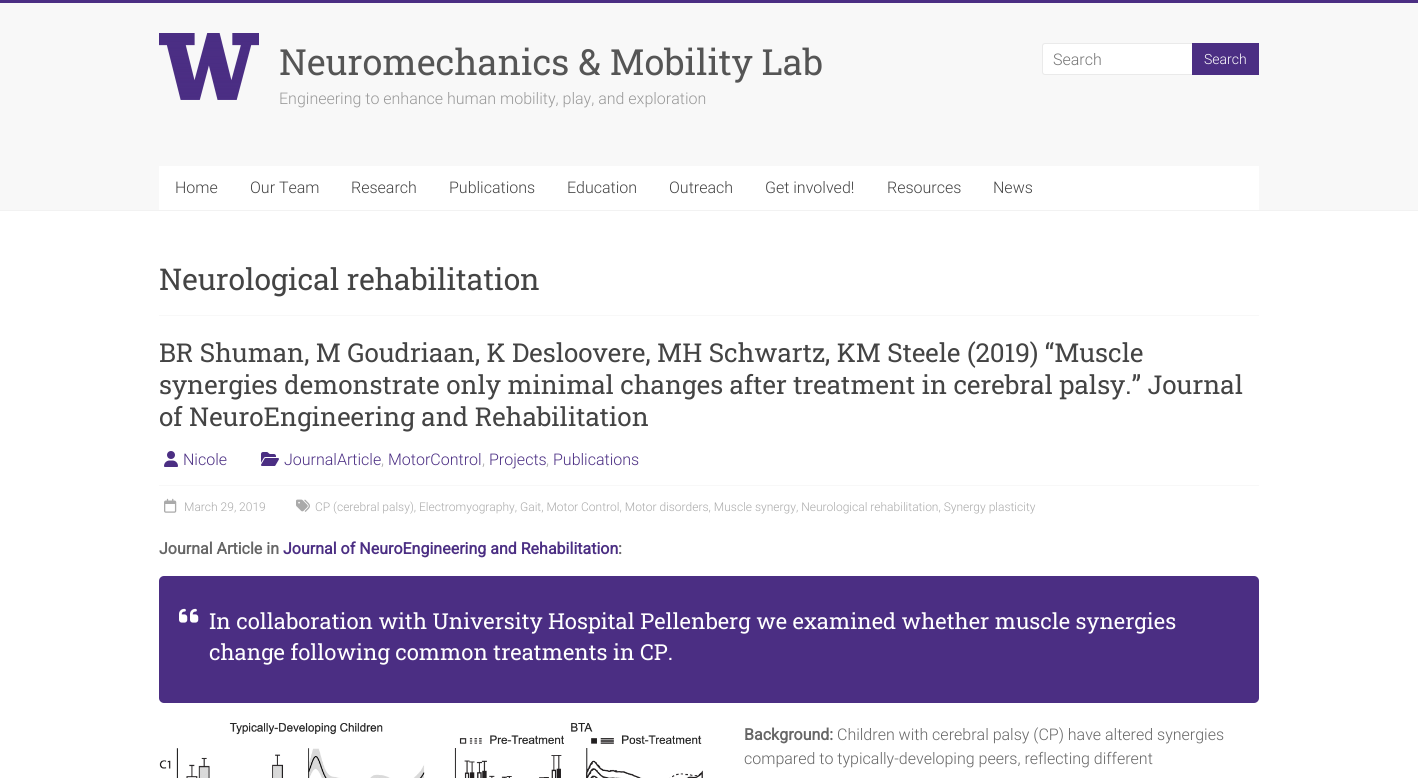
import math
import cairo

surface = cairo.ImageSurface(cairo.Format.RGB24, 1418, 778)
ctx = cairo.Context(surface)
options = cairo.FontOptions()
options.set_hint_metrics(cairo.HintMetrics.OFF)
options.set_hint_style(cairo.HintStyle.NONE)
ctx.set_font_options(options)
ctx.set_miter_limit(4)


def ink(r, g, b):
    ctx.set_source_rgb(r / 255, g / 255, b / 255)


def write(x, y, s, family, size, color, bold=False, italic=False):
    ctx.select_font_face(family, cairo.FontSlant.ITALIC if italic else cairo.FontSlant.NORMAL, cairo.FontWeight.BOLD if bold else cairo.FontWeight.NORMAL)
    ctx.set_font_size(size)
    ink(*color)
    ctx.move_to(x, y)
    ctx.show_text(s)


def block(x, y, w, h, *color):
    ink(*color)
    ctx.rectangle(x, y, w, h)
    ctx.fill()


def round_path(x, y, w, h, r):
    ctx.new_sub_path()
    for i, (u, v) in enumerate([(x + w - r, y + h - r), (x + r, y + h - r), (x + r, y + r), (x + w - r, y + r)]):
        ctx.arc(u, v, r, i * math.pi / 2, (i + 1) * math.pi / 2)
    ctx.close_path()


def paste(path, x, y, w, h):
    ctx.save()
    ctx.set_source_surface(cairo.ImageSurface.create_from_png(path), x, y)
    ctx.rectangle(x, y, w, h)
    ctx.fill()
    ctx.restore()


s1 = dict(family="Roboto Slab", size=36, color=(85, 85, 85))
s2 = dict(family="Roboto Light", size=16, color=(153, 153, 153))
s3 = dict(family="Roboto Light", size=16, color=(117, 117, 117))
s4 = dict(family="Roboto Light", size=14, color=(255, 255, 255))
s5 = dict(family="Roboto Light", size=16, color=(68, 68, 68))
s6 = dict(family="Roboto Slab", size=30, color=(68, 68, 68))
s7 = dict(family="Roboto Slab", size=26, color=(68, 68, 68))
s8 = dict(family="Roboto Light", size=16, color=(75, 46, 131))
s9 = dict(family="Roboto Light", size=16, color=(170, 170, 170))
s10 = dict(family="Roboto Light", size=12, color=(170, 170, 170))
s11 = dict(family="Roboto", size=16, color=(102, 102, 102), bold=True)
s12 = dict(family="Roboto", size=16, color=(75, 46, 131), bold=True)
s13 = dict(family="Roboto Slab", size=22, color=(255, 255, 255))
s14 = dict(family="Roboto Light", size=16, color=(102, 102, 102))

ink(255, 255, 255)
ctx.paint()
block(0, 0, 1418, 3, 75, 46, 131)
block(0, 3, 1418, 207, 248, 248, 248)
block(0, 210, 1418, 1, 242, 242, 242)
paste("pic1.png", 159, 33, 100, 67)
write(279, 75, "Neuromechanics & Mobility Lab", **s1)
write(279, 104, "Engineering to enhance human mobility, play, and exploration", **s2)
ink(255, 255, 255)
ctx.new_path()
ctx.move_to(1045, 43)
ctx.line_to(1192, 43)
ctx.line_to(1192, 75)
ctx.line_to(1045, 75)
ctx.curve_to(1043.5, 75, 1042, 73.5, 1042, 72)
ctx.line_to(1042, 46)
ctx.curve_to(1042, 44.5, 1043.5, 43, 1045, 43)
ctx.close_path()
ctx.fill()
ink(234, 234, 234)
ctx.set_fill_rule(cairo.FillRule.EVEN_ODD)
ctx.new_path()
ctx.move_to(1045, 43)
ctx.line_to(1192, 43)
ctx.line_to(1192, 75)
ctx.line_to(1045, 75)
ctx.curve_to(1043, 75, 1042, 74, 1042, 72)
ctx.line_to(1042, 46)
ctx.curve_to(1042, 44, 1043, 43, 1045, 43)
ctx.close_path()
ctx.move_to(1045, 44)
ctx.line_to(1192, 44)
ctx.line_to(1192, 74)
ctx.line_to(1045, 74)
ctx.curve_to(1044, 74, 1043, 73, 1043, 72)
ctx.line_to(1043, 46)
ctx.curve_to(1043, 45, 1044, 44, 1045, 44)
ctx.close_path()
ctx.fill()
write(1053, 65, "Search", **s3)
block(1192, 43, 67, 32, 75, 46, 131)
write(1204, 64, "Search", **s4)
block(159, 166, 1100, 44, 255, 255, 255)
write(175, 193, "Home", **s5)
write(250, 193, "Our Team", **s5)
write(351, 193, "Research", **s5)
write(449, 193, "Publications", **s5)
write(567, 193, "Education", **s5)
write(669, 193, "Outreach", **s5)
write(765, 193, "Get involved!", **s5)
write(887, 193, "Resources", **s5)
write(993, 193, "News", **s5)
block(159, 315, 1100, 1, 248, 248, 248)
write(159, 290, "Neurological rehabilitation", **s6)
write(159, 362, "BR Shuman, M Goudriaan, K Desloovere, MH Schwartz, KM Steele (2019) “Muscle", **s7)
write(159, 394, "synergies demonstrate only minimal changes after treatment in cerebral palsy.” Journal", **s7)
write(159, 426, "of NeuroEngineering and Rehabilitation", **s7)
paste("pic2.png", 164, 451, 14, 16)
write(183, 465, "Nicole", **s8)
paste("pic3.png", 261, 452, 18, 14)
write(284, 465, "JournalArticle", **s8)
write(381, 465, ",", **s9)
write(388, 465, "MotorControl", **s8)
write(482, 465, ",", **s9)
write(489, 465, "Projects", **s8)
write(546, 465, ",", **s9)
write(553, 465, "Publications", **s8)
block(159, 485, 1100, 1, 248, 248, 248)
paste("pic4.png", 164, 498, 13, 15)
write(184, 511, "March 29, 2019", **s10)
paste("pic5.png", 296, 499, 14, 13)
write(315, 511, "CP (cerebral palsy), Electromyography, Gait, Motor Control, Motor disorders, Muscle synergy, Neurological rehabilitation, Synergy plasticity", **s10)
write(159, 554, "Journal Article in", **s11)
write(283, 554, "Journal of NeuroEngineering and Rehabilitation", **s12)
write(618, 554, ":", **s11)
ink(75, 46, 131)
round_path(159, 576, 1100, 127, 5)
ctx.fill()
paste("pic6.png", 179, 608, 20, 15)
write(209, 629, "In collaboration with University Hospital Pellenberg we examined whether muscle synergies", **s13)
write(209, 660, "change following common treatments in CP.", **s13)
paste("pic7.png", 159, 723, 544, 55)
write(744, 740, "Background:", **s11)
write(837, 740, "Children with cerebral palsy (CP) have altered synergies", **s14)
write(744, 764, "compared to typically-developing peers, reflecting different", **s14)
surface.write_to_png("screenshot.png")
